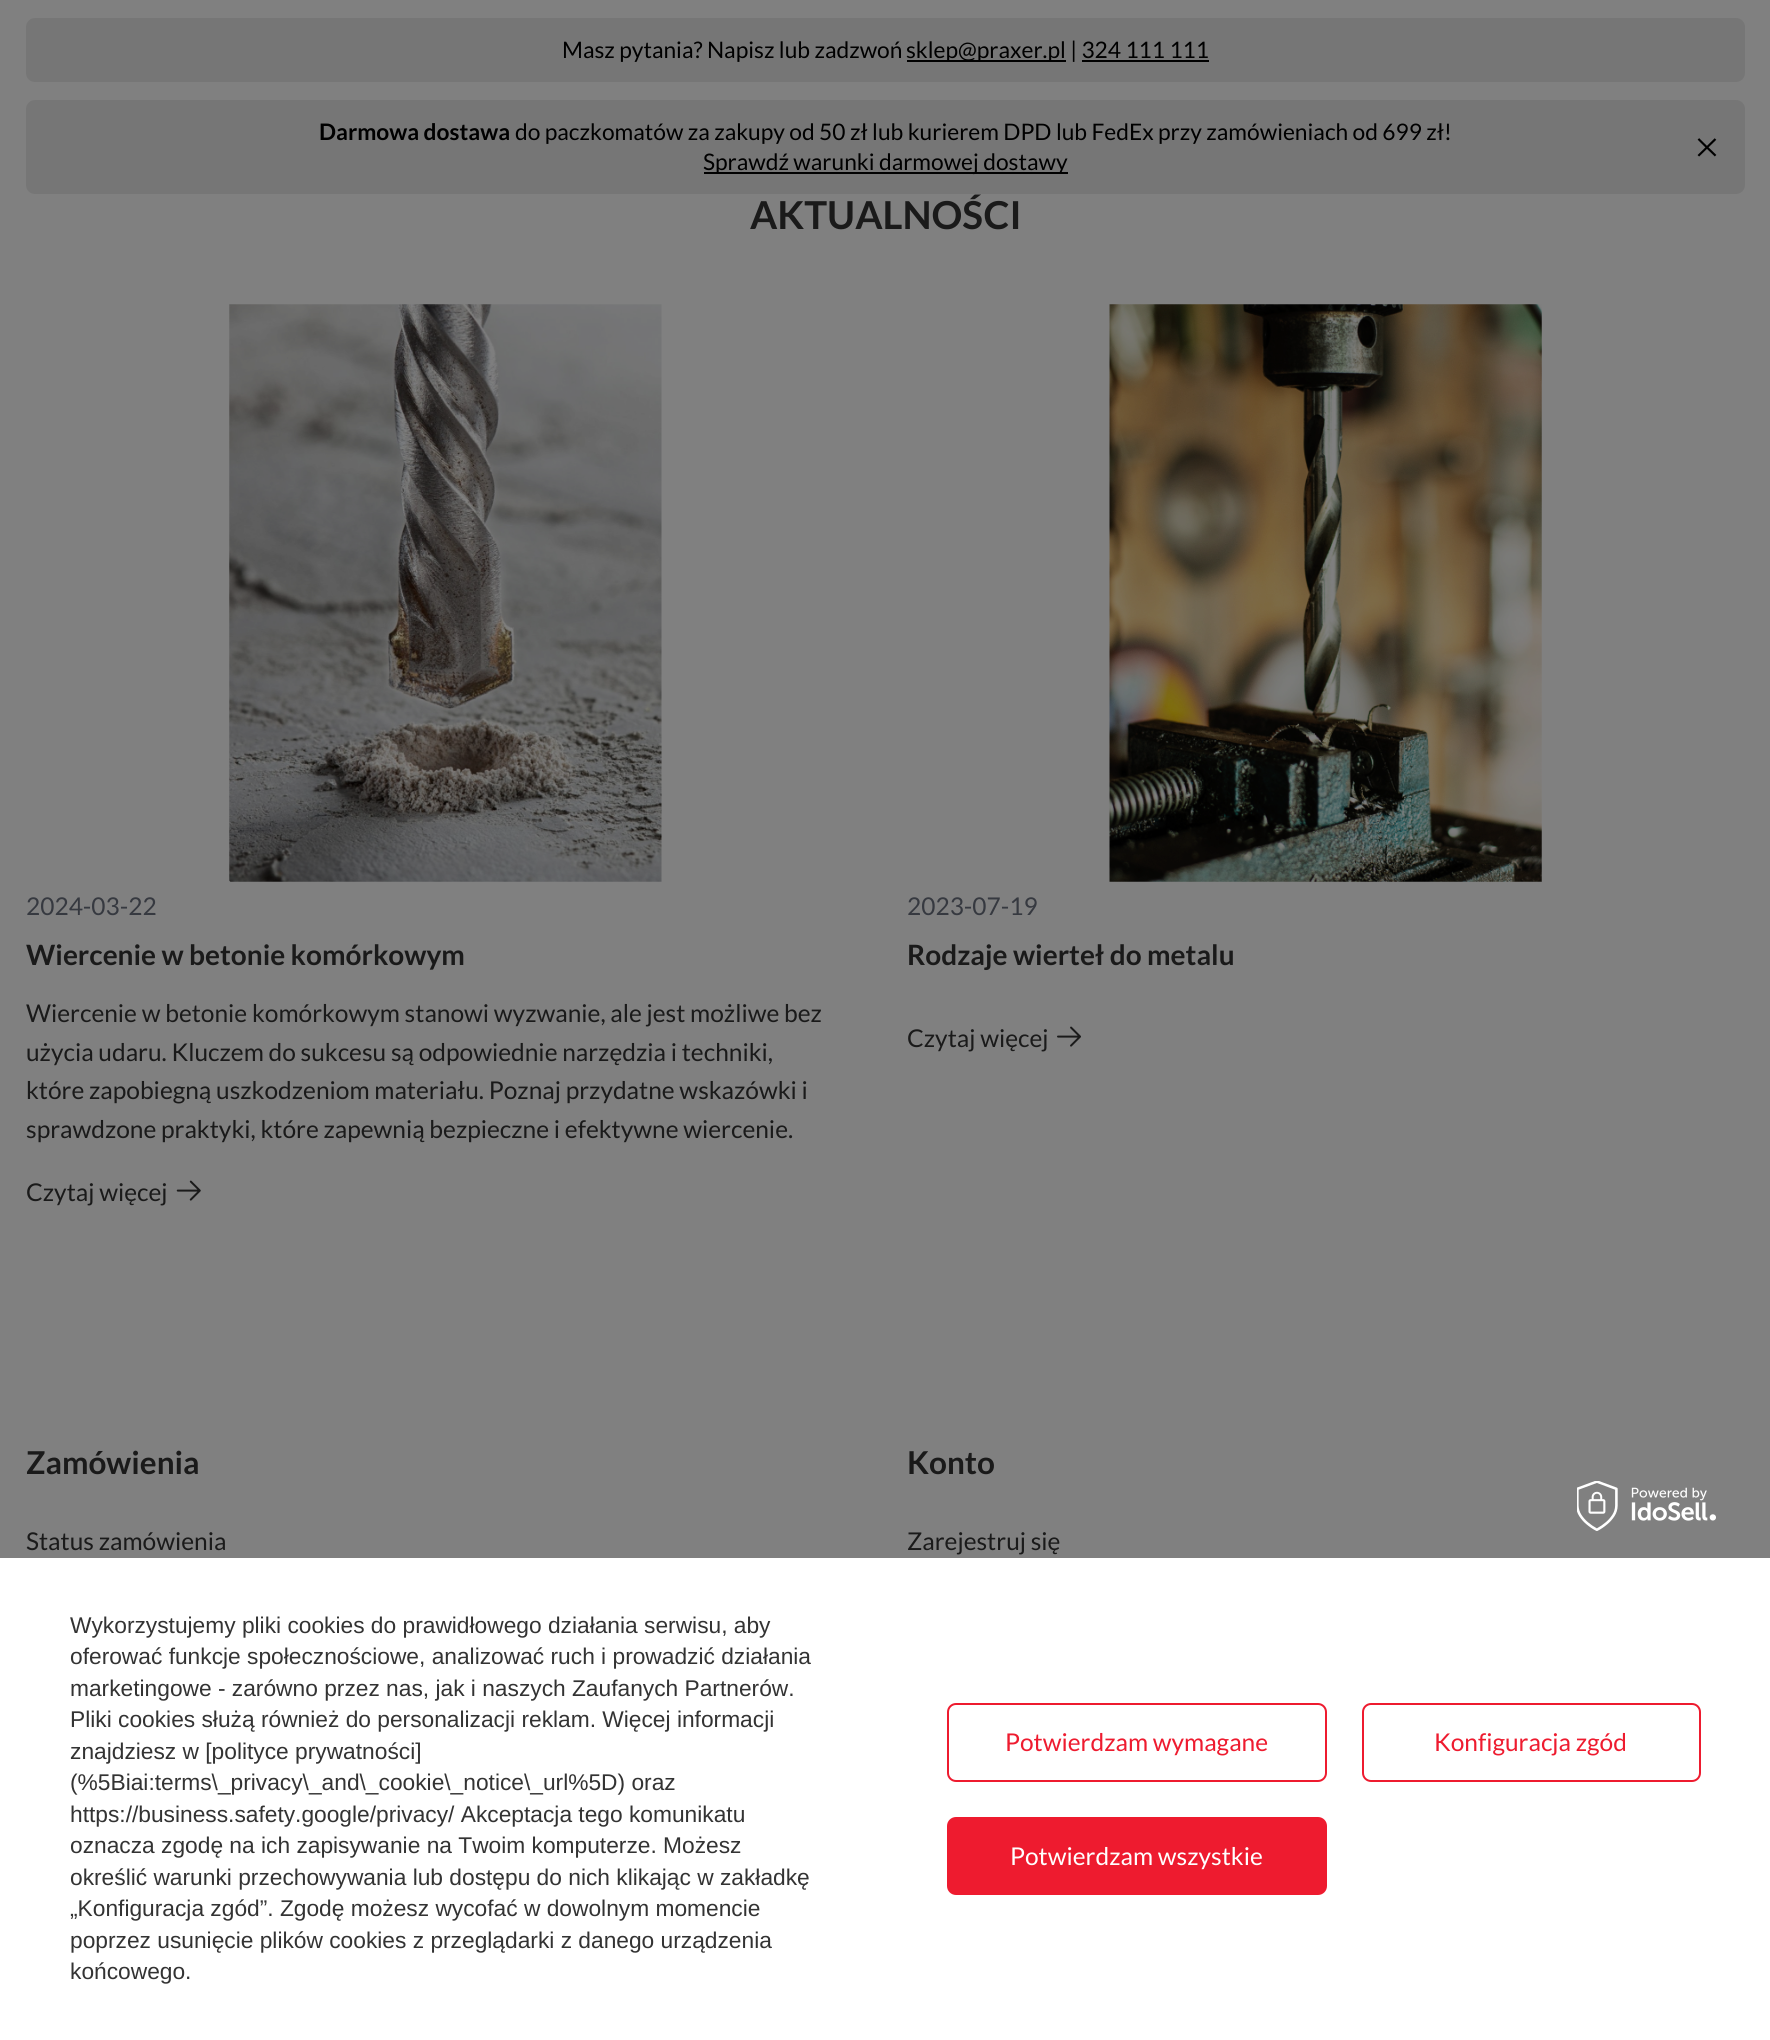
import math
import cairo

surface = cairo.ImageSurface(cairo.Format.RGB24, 1770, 2040)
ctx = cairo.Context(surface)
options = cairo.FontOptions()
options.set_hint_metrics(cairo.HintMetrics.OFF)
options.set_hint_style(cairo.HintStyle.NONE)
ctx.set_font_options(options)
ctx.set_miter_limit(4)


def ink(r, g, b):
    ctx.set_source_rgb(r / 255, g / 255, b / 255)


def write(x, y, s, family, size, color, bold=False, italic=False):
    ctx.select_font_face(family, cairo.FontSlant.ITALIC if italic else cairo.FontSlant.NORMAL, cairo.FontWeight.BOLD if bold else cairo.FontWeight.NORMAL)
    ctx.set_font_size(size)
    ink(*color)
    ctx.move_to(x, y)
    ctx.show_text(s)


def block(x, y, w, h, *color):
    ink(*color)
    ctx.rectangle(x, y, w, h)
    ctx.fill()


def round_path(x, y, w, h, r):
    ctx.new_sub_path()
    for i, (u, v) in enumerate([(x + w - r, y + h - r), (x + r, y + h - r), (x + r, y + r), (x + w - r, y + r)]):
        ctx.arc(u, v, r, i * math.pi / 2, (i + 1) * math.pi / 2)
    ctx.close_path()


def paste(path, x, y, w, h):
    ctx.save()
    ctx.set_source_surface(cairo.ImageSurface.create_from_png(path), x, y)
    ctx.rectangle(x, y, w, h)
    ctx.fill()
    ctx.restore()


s1 = dict(family="Lato", size=22.75, color=(0, 0, 0))
s2 = dict(family="Lato", size=22.75, color=(0, 0, 0), bold=True)
s3 = dict(family="Lato", size=38.5, color=(26, 26, 26), bold=True)
s4 = dict(family="Lato", size=24.5, color=(54, 57, 64))
s5 = dict(family="Lato", size=28, color=(26, 26, 26), bold=True)
s6 = dict(family="Lato", size=24.5, color=(26, 26, 26))
s7 = dict(family="Lato", size=31.5, color=(26, 26, 26), bold=True)
s8 = dict(family="Liberation Sans", size=22.75, color=(51, 51, 51))
s9 = dict(family="Lato", size=24.5, color=(238, 27, 47))
s10 = dict(family="Lato", size=24.5, color=(255, 255, 255))

ink(128, 128, 128)
ctx.paint()
ink(118, 118, 118)
round_path(26, 18, 1719, 64, 9)
ctx.fill()
write(562, 58, "Masz pytania? Napisz lub zadzwoń", **s1)
block(907, 60, 159, 2, 0, 0, 0)
write(906, 58, "sklep@praxer.pl | 324 111 111", **s1)
block(1082, 60, 127, 2, 0, 0, 0)
ink(118, 118, 118)
round_path(26, 100, 1719, 94, 9)
ctx.fill()
write(319, 140, "Darmowa dostawa", **s2)
write(515, 140, "do paczkomatów za zakupy od 50 zł lub kurierem DPD lub FedEx przy zamówieniach od 699 zł!", **s1)
block(704, 172, 364, 2, 0, 0, 0)
write(703, 170, "Sprawdź warunki darmowej dostawy", **s1)
paste("pic1.png", 1697, 138, 20, 19)
write(750, 229, "AKTUALNOŚCI", **s3)
paste("pic2.png", 229, 304, 433, 578)
write(26, 915, "2024-03-22", **s4)
write(26, 965, "Wiercenie w betonie komórkowym", **s5)
write(26, 1022, "Wiercenie w betonie komórkowym stanowi wyzwanie, ale jest możliwe bez", **s6)
write(26, 1061, "użycia udaru. Kluczem do sukcesu są odpowiednie narzędzia i techniki,", **s6)
write(26, 1099, "które zapobiegną uszkodzeniom materiału. Poznaj przydatne wskazówki i", **s6)
write(26, 1138, "sprawdzone praktyki, które zapewnią bezpieczne i efektywne wiercenie.", **s6)
write(26, 1201, "Czytaj więcej", **s6)
paste("pic3.png", 176, 1180, 25, 21)
paste("pic4.png", 1109, 304, 433, 578)
write(907, 915, "2023-07-19", **s4)
write(907, 965, "Rodzaje wierteł do metalu", **s5)
write(907, 1047, "Czytaj więcej", **s6)
paste("pic5.png", 1057, 1026, 24, 21)
write(26, 1474, "Zamówienia", **s7)
write(26, 1550, "Status zamówienia", **s6)
write(907, 1474, "Konto", **s7)
write(907, 1550, "Zarejestruj się", **s6)
block(0, 1558, 1770, 482, 255, 255, 255)
paste("pic6.png", 1577, 1481, 139, 50)
write(70, 1633, "Wykorzystujemy pliki cookies do prawidłowego działania serwisu, aby", **s8)
write(70, 1664, "oferować funkcje społecznościowe, analizować ruch i prowadzić działania", **s8)
write(70, 1696, "marketingowe - zarówno przez nas, jak i naszych Zaufanych Partnerów.", **s8)
write(70, 1727, "Pliki cookies służą również do personalizacji reklam. Więcej informacji", **s8)
write(70, 1759, "znajdziesz w [polityce prywatności]", **s8)
write(70, 1790, "(%5Biai:terms\\_privacy\\_and\\_cookie\\_notice\\_url%5D) oraz", **s8)
write(70, 1822, "https://business.safety.google/privacy/ Akceptacja tego komunikatu", **s8)
write(70, 1853, "oznacza zgodę na ich zapisywanie na Twoim komputerze. Możesz", **s8)
write(70, 1885, "określić warunki przechowywania lub dostępu do nich klikając w zakładkę", **s8)
write(70, 1916, "„Konfiguracja zgód”. Zgodę możesz wycofać w dowolnym momencie", **s8)
write(70, 1948, "poprzez usunięcie plików cookies z przeglądarki z danego urządzenia", **s8)
write(70, 1979, "końcowego.", **s8)
round_path(948, 1704, 378, 77, 8)
ink(238, 27, 47)
ctx.stroke()
write(1005, 1751, "Potwierdzam wymagane", **s9)
round_path(1363, 1704, 337, 77, 8)
ctx.stroke()
write(1434, 1751, "Konfiguracja zgód", **s9)
round_path(948, 1818, 378, 76, 8)
ctx.fill_preserve()
ctx.stroke()
write(1010, 1865, "Potwierdzam wszystkie", **s10)
surface.write_to_png("screenshot.png")
